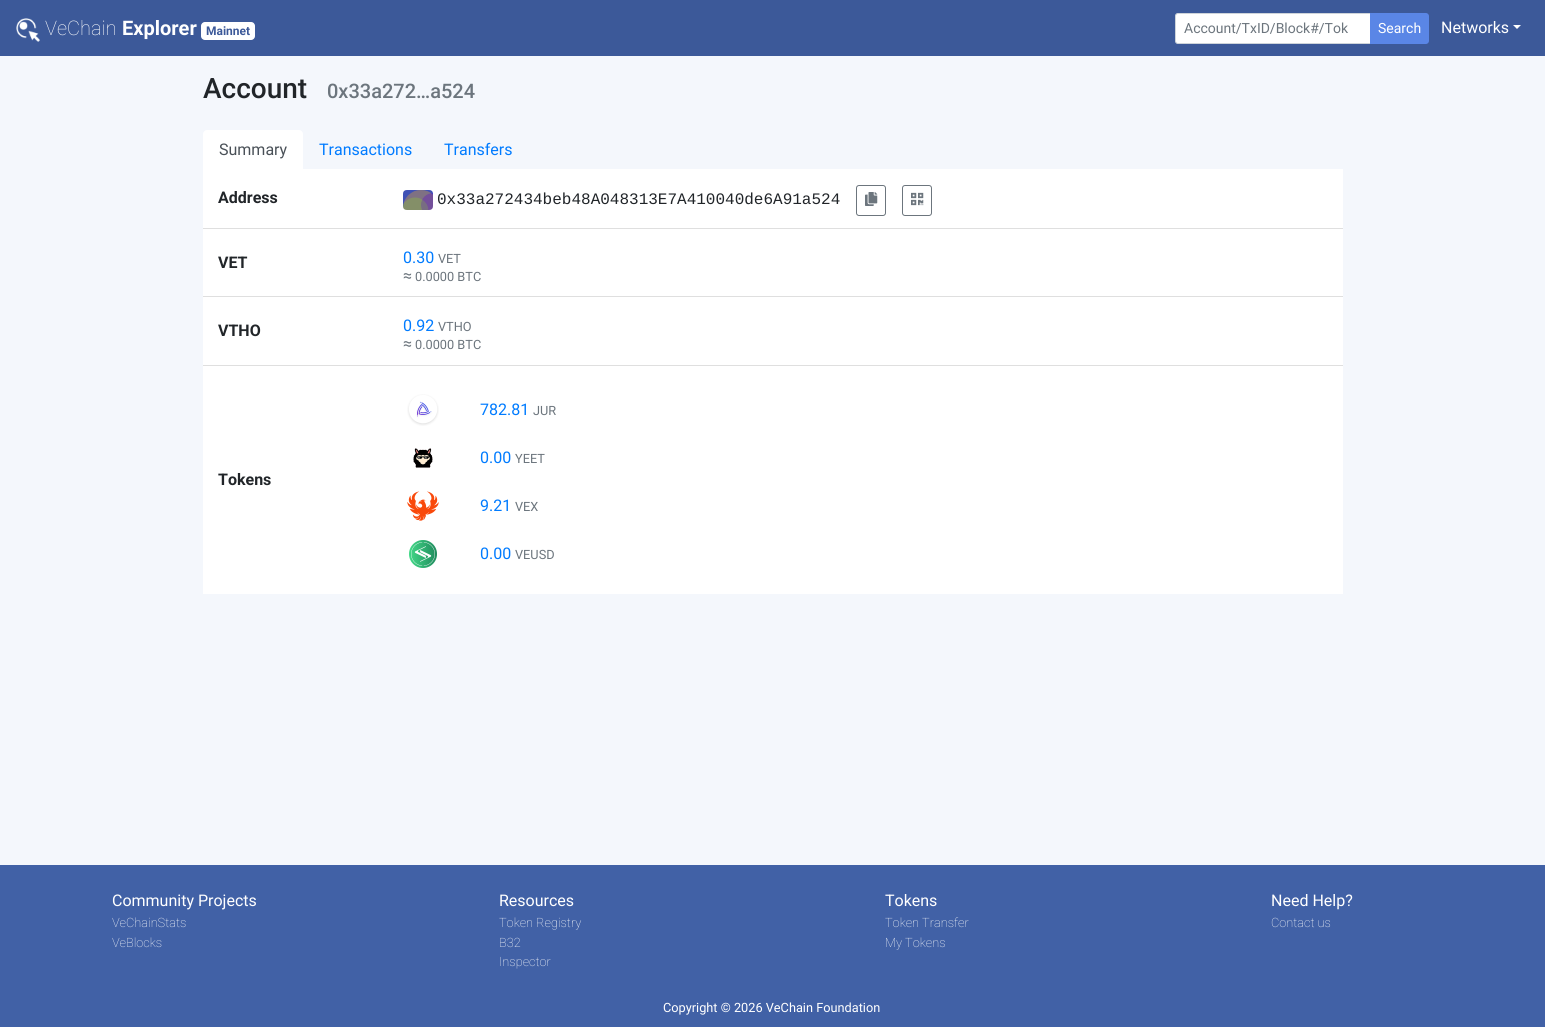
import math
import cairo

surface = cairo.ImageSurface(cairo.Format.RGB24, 1545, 1027)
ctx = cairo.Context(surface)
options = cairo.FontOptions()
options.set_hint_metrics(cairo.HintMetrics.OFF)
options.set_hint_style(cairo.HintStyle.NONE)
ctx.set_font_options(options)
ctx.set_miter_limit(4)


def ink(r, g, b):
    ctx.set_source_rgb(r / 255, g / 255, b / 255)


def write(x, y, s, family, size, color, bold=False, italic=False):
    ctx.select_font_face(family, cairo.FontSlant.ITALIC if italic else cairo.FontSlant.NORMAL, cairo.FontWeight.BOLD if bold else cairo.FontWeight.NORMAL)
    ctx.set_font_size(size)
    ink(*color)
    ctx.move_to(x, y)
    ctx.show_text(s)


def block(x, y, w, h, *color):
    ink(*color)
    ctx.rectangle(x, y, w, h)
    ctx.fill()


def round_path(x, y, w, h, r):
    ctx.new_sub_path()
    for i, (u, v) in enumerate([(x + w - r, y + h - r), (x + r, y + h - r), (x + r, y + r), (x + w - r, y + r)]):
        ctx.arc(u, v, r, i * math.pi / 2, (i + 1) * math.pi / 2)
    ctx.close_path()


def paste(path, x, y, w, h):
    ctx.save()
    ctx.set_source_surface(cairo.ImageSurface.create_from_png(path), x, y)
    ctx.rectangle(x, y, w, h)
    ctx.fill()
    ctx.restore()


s1 = dict(family="Roboto Thin", size=20, color=(255, 255, 255))
s2 = dict(family="Roboto", size=20, color=(255, 255, 255), bold=True)
s3 = dict(family="Roboto", size=12, color=(60, 89, 153), bold=True)
s4 = dict(family="Roboto", size=14, color=(108, 117, 125))
s5 = dict(family="Roboto", size=14, color=(255, 255, 255))
s6 = dict(family="Roboto", size=16, color=(255, 255, 255))
s7 = dict(family="Roboto Medium", size=28, color=(33, 37, 41))
s8 = dict(family="Roboto Medium", size=20, color=(108, 117, 125))
s9 = dict(family="Roboto", size=16, color=(73, 80, 87))
s10 = dict(family="Roboto", size=16, color=(0, 123, 255))
s11 = dict(family="Roboto", size=16, color=(33, 37, 41), bold=True)
s12 = dict(family="Liberation Mono", size=16, color=(33, 37, 41))
s13 = dict(family="Roboto", size=12.75, color=(108, 117, 125))
s14 = dict(family="Roboto", size=16, color=(108, 117, 125))
s15 = dict(family="Roboto Thin", size=12.75, color=(255, 255, 255))
s16 = dict(family="Roboto", size=12.75, color=(255, 255, 255))

ink(244, 247, 252)
ctx.paint()
block(0, 0, 1545, 56, 60, 89, 153)
paste("pic1.png", 16, 18, 24, 24)
write(45, 35, "VeChain", **s1)
write(122, 35, "Explorer", **s2)
round_path(201, 22, 54, 18, 4)
ctx.fill()
write(206, 35, "Mainnet", **s3)
ink(255, 255, 255)
ctx.new_path()
ctx.move_to(1178, 13.5)
ctx.line_to(1370.5, 13.5)
ctx.line_to(1370.5, 43.5)
ctx.line_to(1178, 43.5)
ctx.curve_to(1176.5, 43.5, 1175.5, 42.5, 1175.5, 41)
ctx.line_to(1175.5, 16)
ctx.curve_to(1175.5, 14.5, 1176.5, 13.5, 1178, 13.5)
ctx.close_path()
ctx.fill_preserve()
ink(206, 212, 218)
ctx.set_line_width(1)
ctx.stroke()
write(1184, 33, "Account/TxID/Block#/Tok", **s4)
ink(90, 134, 230)
ctx.new_path()
ctx.move_to(1370, 13)
ctx.line_to(1426, 13)
ctx.curve_to(1427.5, 13, 1429, 14.5, 1429, 16)
ctx.line_to(1429, 41)
ctx.curve_to(1429, 42.5, 1427.5, 44, 1426, 44)
ctx.line_to(1370, 44)
ctx.close_path()
ctx.fill()
write(1378, 33, "Search", **s5)
write(1441, 33, "Networks", **s6)
ctx.new_path()
ctx.move_to(1513, 25)
ctx.line_to(1521, 25)
ctx.line_to(1517, 29)
ctx.close_path()
ctx.fill()
write(203, 98, "Account", **s7)
write(327, 98, "0x33a272…a524", **s8)
block(203, 169, 1140, 425, 255, 255, 255)
ctx.new_path()
ctx.move_to(207, 130)
ctx.line_to(299, 130)
ctx.curve_to(301, 130, 303, 132, 303, 134)
ctx.line_to(303, 170)
ctx.line_to(203, 170)
ctx.line_to(203, 134)
ctx.curve_to(203, 132, 205, 130, 207, 130)
ctx.close_path()
ctx.fill()
write(219, 155, "Summary", **s9)
write(319, 155, "Transactions", **s10)
write(444, 155, "Transfers", **s10)
block(203, 228, 1140, 1, 223, 223, 223)
write(218, 203, "Address", **s11)
paste("pic2.png", 403, 190, 30, 20)
write(437, 204, "0x33a272434beb48A048313E7A410040de6A91a524", **s12)
round_path(856.5, 185.5, 29, 30, 2.5)
ink(108, 117, 125)
ctx.stroke()
paste("pic3.png", 865, 192, 13, 14)
round_path(902.5, 185.5, 29, 30, 2.5)
ctx.stroke()
paste("pic4.png", 911, 192, 13, 14)
block(203, 296, 1140, 1, 223, 223, 223)
write(218, 268, "VET", **s11)
write(403, 263, "0.30", **s10)
write(438, 263, "VET", **s13)
write(403, 281, "≈", **s14)
write(415, 281, "0.0000 BTC", **s13)
block(203, 365, 1140, 1, 223, 223, 223)
write(218, 336, "VTHO", **s11)
write(403, 331, "0.92", **s10)
write(438, 331, "VTHO", **s13)
write(403, 349, "≈", **s14)
write(415, 349, "0.0000 BTC", **s13)
write(218, 485, "Tokens", **s11)
paste("pic5.png", 407, 394, 32, 32)
write(480, 415, "782.81", **s10)
write(533, 415, "JUR", **s13)
paste("pic6.png", 413, 448, 20, 20)
write(480, 463, "0.00", **s10)
write(515, 463, "YEET", **s13)
paste("pic7.png", 407, 491, 32, 30)
write(480, 511, "9.21", **s10)
write(515, 511, "VEX", **s13)
paste("pic8.png", 409, 540, 28, 28)
write(480, 559, "0.00", **s10)
write(515, 559, "VEUSD", **s13)
block(0, 865, 1545, 162, 65, 97, 166)
write(112, 906, "Community Projects", **s6)
write(112, 927, "VeChainStats", **s15)
write(112, 947, "VeBlocks", **s15)
write(499, 906, "Resources", **s6)
write(499, 927, "Token Registry", **s15)
write(499, 947, "B32", **s15)
write(499, 966, "Inspector", **s15)
write(885, 906, "Tokens", **s6)
write(885, 927, "Token Transfer", **s15)
write(885, 947, "My Tokens", **s15)
write(1271, 906, "Need Help?", **s6)
write(1271, 927, "Contact us", **s15)
write(663, 1012, "Copyright © 2026 VeChain Foundation", **s16)
surface.write_to_png("screenshot.png")
